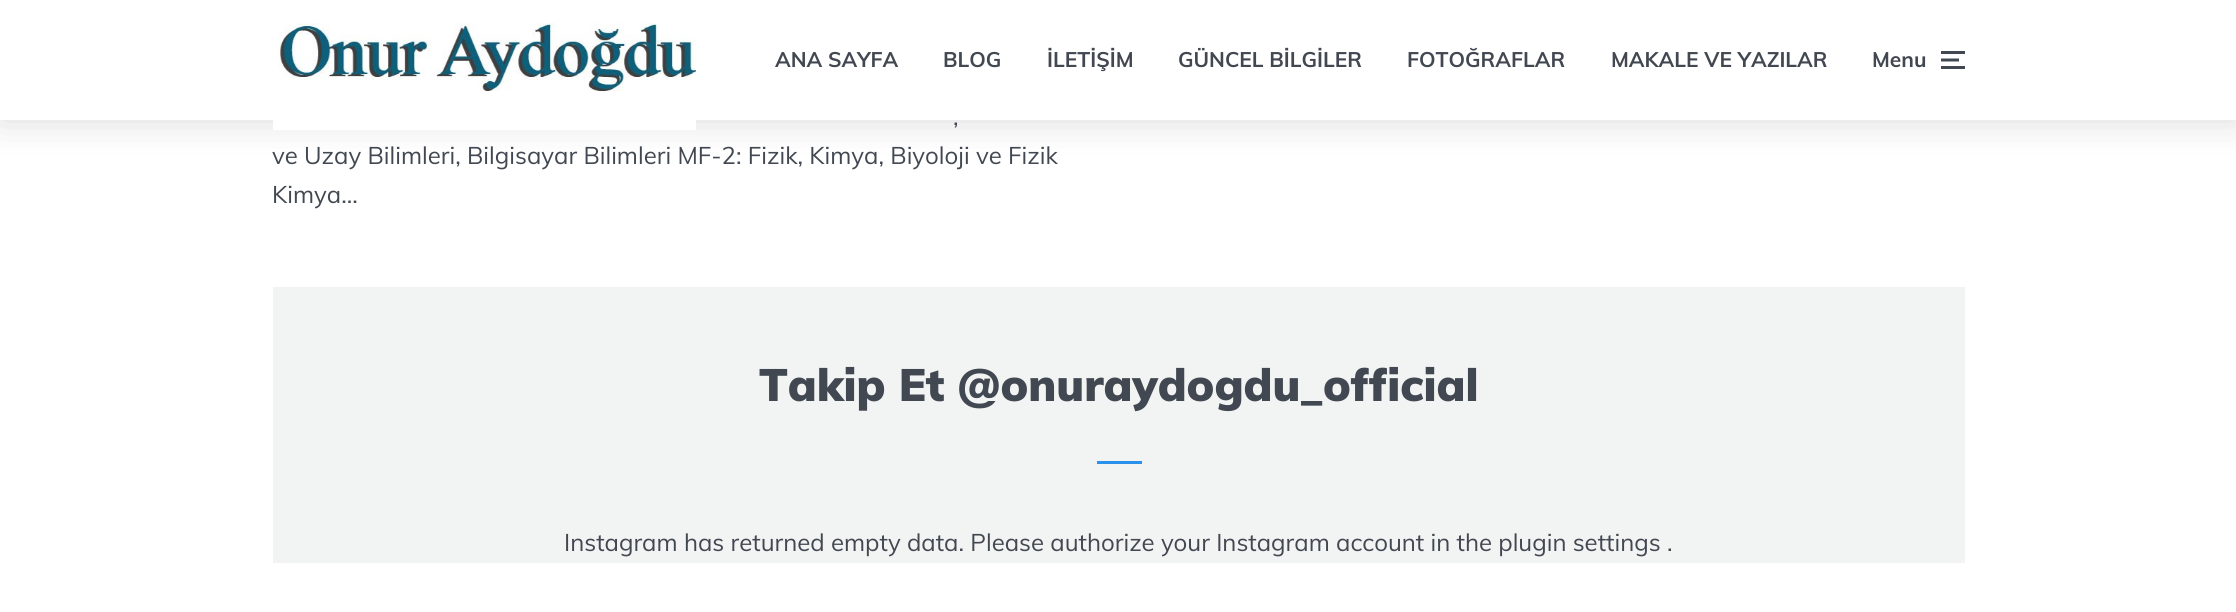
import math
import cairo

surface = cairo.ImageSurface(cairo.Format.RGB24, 2236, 612)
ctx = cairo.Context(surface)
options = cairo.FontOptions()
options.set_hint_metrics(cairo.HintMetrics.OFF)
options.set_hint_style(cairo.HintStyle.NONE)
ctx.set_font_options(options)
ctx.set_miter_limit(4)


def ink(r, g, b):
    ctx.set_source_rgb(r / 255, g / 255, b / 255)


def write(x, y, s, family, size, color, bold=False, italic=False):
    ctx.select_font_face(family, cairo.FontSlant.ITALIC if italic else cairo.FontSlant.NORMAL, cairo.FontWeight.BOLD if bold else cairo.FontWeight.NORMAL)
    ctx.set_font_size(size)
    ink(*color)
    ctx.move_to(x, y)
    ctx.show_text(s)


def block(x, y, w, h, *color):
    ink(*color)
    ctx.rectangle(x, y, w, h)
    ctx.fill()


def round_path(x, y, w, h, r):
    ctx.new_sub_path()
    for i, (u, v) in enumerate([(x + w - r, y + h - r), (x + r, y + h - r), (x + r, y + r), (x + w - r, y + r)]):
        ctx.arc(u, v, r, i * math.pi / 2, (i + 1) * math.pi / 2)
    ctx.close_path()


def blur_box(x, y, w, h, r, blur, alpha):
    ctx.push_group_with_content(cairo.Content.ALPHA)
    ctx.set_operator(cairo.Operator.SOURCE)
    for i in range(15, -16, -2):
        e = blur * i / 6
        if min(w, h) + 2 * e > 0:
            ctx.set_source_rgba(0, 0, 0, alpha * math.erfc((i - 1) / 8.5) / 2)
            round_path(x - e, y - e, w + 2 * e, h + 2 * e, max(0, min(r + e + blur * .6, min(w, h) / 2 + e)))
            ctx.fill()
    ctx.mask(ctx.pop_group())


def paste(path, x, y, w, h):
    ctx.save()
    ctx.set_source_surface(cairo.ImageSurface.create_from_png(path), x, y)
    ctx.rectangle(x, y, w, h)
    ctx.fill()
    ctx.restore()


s1 = dict(family="Muli", size=21, color=(66, 72, 81), bold=True)
s2 = dict(family="Muli", size=24, color=(66, 72, 81))
s3 = dict(family="Muli Black", size=45, color=(66, 72, 81))

ink(255, 255, 255)
ctx.paint()
ink(0, 0, 0)
blur_box(0, 0, 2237, 120, 0, 19, 0.15)
block(0, 0, 2236, 120, 255, 255, 255)
paste("pic1.png", 273, 23, 423, 107)
write(775, 67, "ANA SAYFA", **s1)
write(943, 67, "BLOG", **s1)
write(1047, 67, "İLETİŞİM", **s1)
write(1178, 67, "GÜNCEL BİLGİLER", **s1)
write(1407, 67, "FOTOĞRAFLAR", **s1)
write(1611, 67, "MAKALE VE YAZILAR", **s1)
write(1872, 67, "Menu", **s1)
paste("pic2.png", 1941, 51, 24, 18)
write(953, 125, ",", **s2)
write(272, 164, "ve Uzay Bilimleri, Bilgisayar Bilimleri MF-2: Fizik, Kimya, Biyoloji ve Fizik", **s2)
write(272, 203, "Kimya...", **s2)
block(273, 287, 1692, 276, 242, 243, 243)
write(759, 401, "Takip Et @onuraydogdu_official", **s3)
block(1097, 461, 45, 3, 43, 146, 236)
write(564, 551, "Instagram has returned empty data. Please authorize your Instagram account in the plugin settings .", **s2)
surface.write_to_png("screenshot.png")
